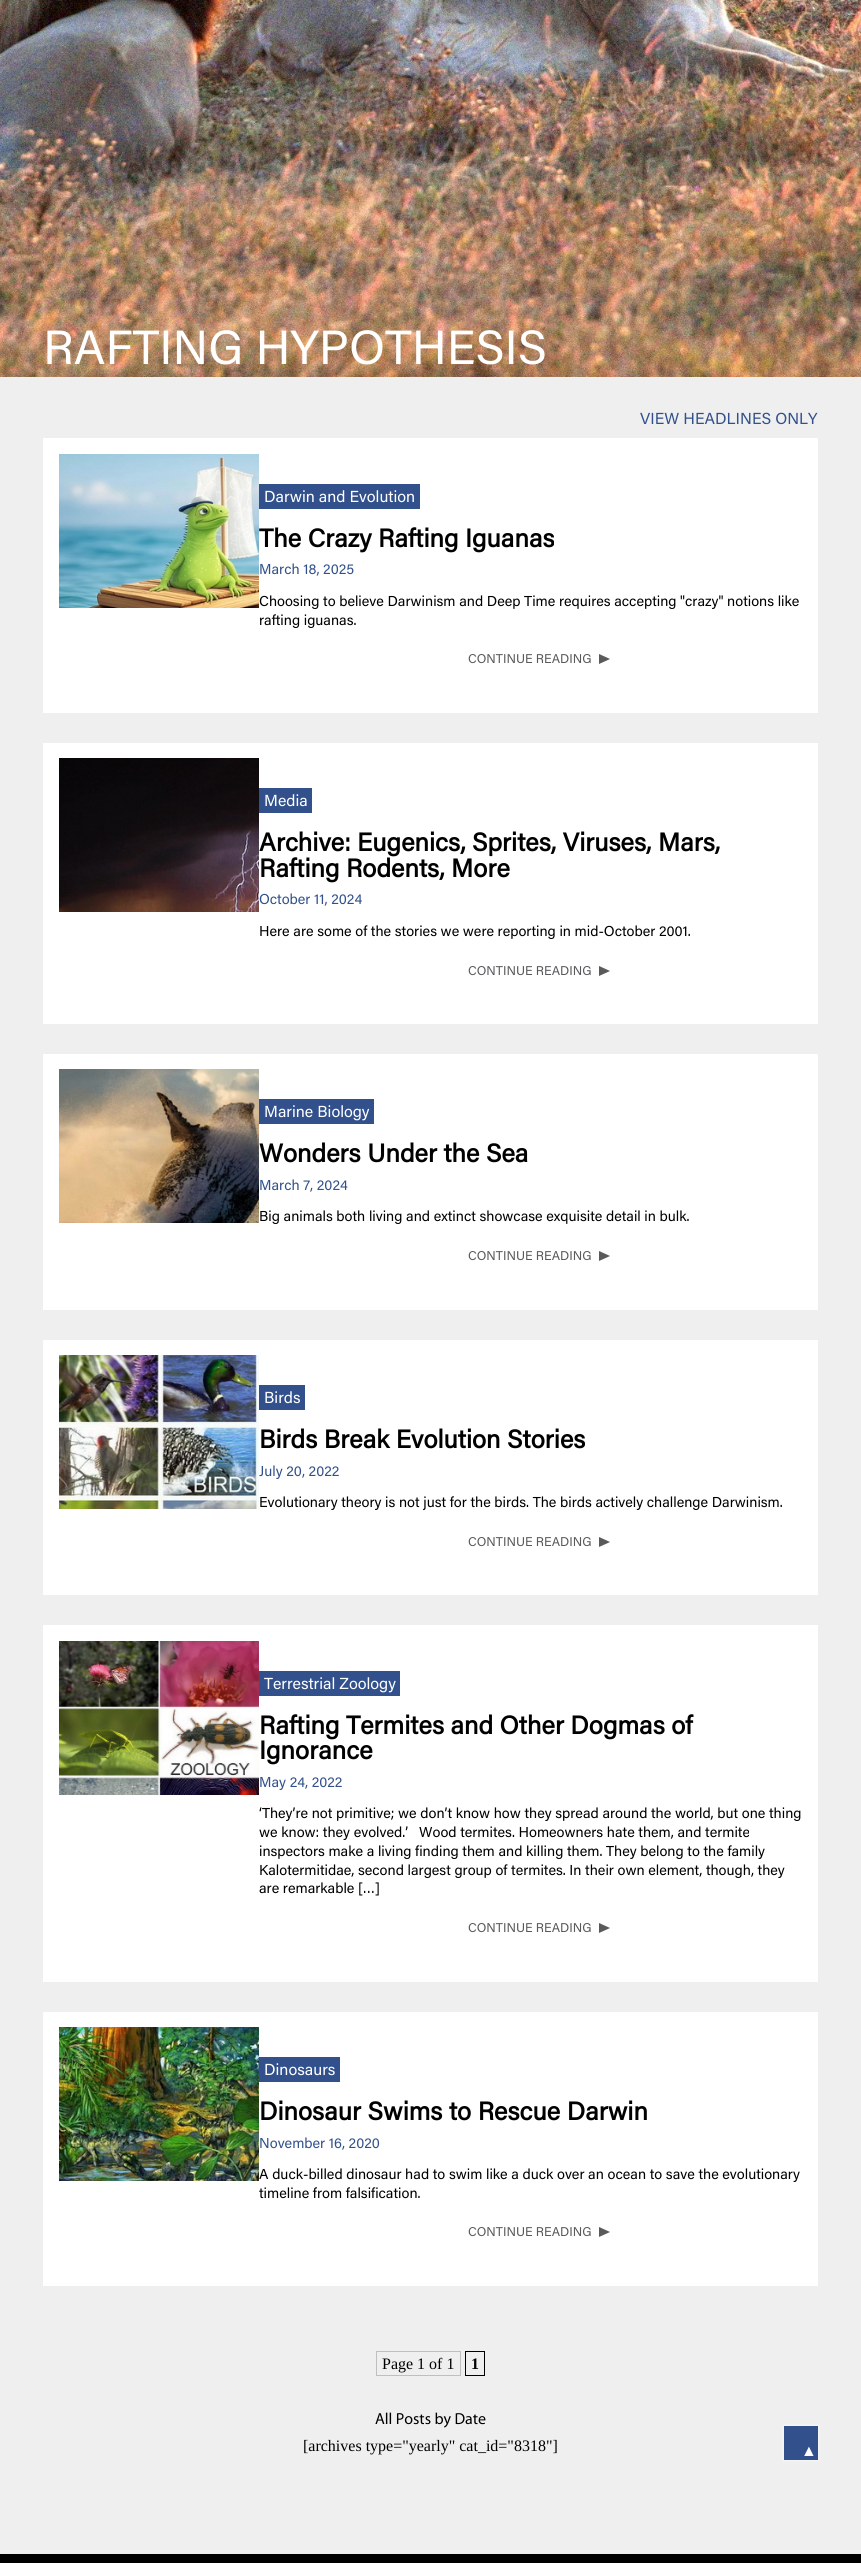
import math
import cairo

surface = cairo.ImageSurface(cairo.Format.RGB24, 861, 2563)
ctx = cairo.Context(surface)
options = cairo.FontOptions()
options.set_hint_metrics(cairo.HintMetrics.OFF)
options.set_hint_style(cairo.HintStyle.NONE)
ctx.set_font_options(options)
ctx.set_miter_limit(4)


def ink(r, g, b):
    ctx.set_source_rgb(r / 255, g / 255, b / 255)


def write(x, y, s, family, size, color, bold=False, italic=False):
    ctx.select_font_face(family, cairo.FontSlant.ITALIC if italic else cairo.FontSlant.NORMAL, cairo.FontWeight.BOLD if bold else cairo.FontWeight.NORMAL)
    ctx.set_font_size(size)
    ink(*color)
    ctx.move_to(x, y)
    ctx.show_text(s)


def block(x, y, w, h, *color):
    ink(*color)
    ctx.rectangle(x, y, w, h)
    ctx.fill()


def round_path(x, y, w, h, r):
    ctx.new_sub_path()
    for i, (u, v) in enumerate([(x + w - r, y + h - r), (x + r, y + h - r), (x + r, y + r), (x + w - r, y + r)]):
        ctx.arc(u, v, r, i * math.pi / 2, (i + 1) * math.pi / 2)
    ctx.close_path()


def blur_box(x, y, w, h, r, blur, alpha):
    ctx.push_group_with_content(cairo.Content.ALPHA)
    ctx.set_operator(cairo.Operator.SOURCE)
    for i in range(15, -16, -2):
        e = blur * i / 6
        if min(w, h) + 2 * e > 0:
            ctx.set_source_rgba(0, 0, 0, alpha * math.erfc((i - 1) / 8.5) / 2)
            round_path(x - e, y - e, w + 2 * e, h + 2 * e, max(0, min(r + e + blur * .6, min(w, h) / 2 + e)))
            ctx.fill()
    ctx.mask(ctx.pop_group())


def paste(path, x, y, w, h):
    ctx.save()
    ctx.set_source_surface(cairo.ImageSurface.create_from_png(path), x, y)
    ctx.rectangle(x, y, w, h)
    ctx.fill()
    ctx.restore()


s1 = dict(family="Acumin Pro", size=48, color=(255, 255, 255))
s2 = dict(family="Acumin Pro", size=16, color=(50, 81, 140))
s3 = dict(family="Acumin Pro", size=25.6, color=(0, 0, 0), bold=True)
s4 = dict(family="Acumin Pro", size=16, color=(255, 255, 255))
s5 = dict(family="Acumin Pro", size=14.4, color=(50, 81, 140))
s6 = dict(family="Acumin Pro", size=14.4, color=(0, 0, 0))
s7 = dict(family="Acumin Pro", size=12.75, color=(89, 90, 92))
s8 = dict(family="Liberation Serif", size=16, color=(0, 0, 0))
s9 = dict(family="Liberation Serif", size=16, color=(0, 0, 0), bold=True)
s10 = dict(family="Myriad", size=16, color=(0, 0, 0))
s11 = dict(family="Liberation Serif", size=16, color=(255, 255, 255))

ink(240, 239, 239)
ctx.paint()
paste("pic1.png", 0, 0, 861, 377)
write(43, 364, "RAFTING HYPOTHESIS", **s1)
write(640, 424, "VIEW HEADLINES ONLY", **s2)
block(43, 438, 775, 275, 255, 255, 255)
write(259, 547, "The Crazy Rafting Iguanas", **s3)
paste("pic2.png", 59, 454, 200, 154)
block(259, 484, 161, 25, 50, 81, 140)
write(264, 502, "Darwin and Evolution", **s4)
write(259, 574, "March 18, 2025", **s5)
write(259, 606, "Choosing to believe Darwinism and Deep Time requires accepting \"crazy\" notions like", **s6)
write(259, 625, "rafting iguanas.", **s6)
write(468, 663, "CONTINUE READING", **s7)
ctx.new_path()
ctx.move_to(599, 664)
ctx.line_to(599, 654)
ctx.line_to(610, 659)
ctx.close_path()
ctx.fill()
block(43, 743, 775, 281, 255, 255, 255)
paste("pic3.png", 59, 758, 200, 154)
block(259, 788, 53, 25, 50, 81, 140)
write(264, 806, "Media", **s4)
write(259, 851, "Archive: Eugenics, Sprites, Viruses, Mars,", **s3)
write(259, 877, "Rafting Rodents, More", **s3)
write(259, 904, "October 11, 2024", **s5)
write(259, 936, "Here are some of the stories we were reporting in mid-October 2001.", **s6)
write(468, 975, "CONTINUE READING", **s7)
ctx.new_path()
ctx.move_to(599, 976)
ctx.line_to(599, 966)
ctx.line_to(610, 971)
ctx.close_path()
ctx.fill()
block(43, 1054, 775, 256, 255, 255, 255)
paste("pic4.png", 59, 1069, 200, 154)
block(259, 1099, 115, 25, 50, 81, 140)
write(264, 1117, "Marine Biology", **s4)
write(259, 1162, "Wonders Under the Sea", **s3)
write(259, 1190, "March 7, 2024", **s5)
write(259, 1221, "Big animals both living and extinct showcase exquisite detail in bulk.", **s6)
write(468, 1260, "CONTINUE READING", **s7)
ctx.new_path()
ctx.move_to(599, 1261)
ctx.line_to(599, 1251)
ctx.line_to(610, 1256)
ctx.close_path()
ctx.fill()
block(43, 1340, 775, 255, 255, 255, 255)
write(259, 1476, "July 20, 2022", **s5)
paste("pic5.png", 59, 1355, 200, 154)
block(259, 1385, 46, 25, 50, 81, 140)
write(264, 1403, "Birds", **s4)
write(259, 1448, "Birds Break Evolution Stories", **s3)
write(259, 1507, "Evolutionary theory is not just for the birds. The birds actively challenge Darwinism.", **s6)
write(468, 1546, "CONTINUE READING", **s7)
ctx.new_path()
ctx.move_to(599, 1547)
ctx.line_to(599, 1537)
ctx.line_to(610, 1542)
ctx.close_path()
ctx.fill()
block(43, 1625, 775, 357, 255, 255, 255)
paste("pic6.png", 59, 1641, 200, 154)
block(259, 1671, 141, 25, 50, 81, 140)
write(264, 1689, "Terrestrial Zoology", **s4)
write(259, 1734, "Rafting Termites and Other Dogmas of", **s3)
write(259, 1759, "Ignorance", **s3)
write(259, 1787, "May 24, 2022", **s5)
write(259, 1818, "‘They’re not primitive; we don’t know how they spread around the world, but one thing", **s6)
write(259, 1837, "we know: they evolved.’   Wood termites. Homeowners hate them, and termite", **s6)
write(259, 1856, "inspectors make a living finding them and killing them. They belong to the family", **s6)
write(259, 1875, "Kalotermitidae, second largest group of termites. In their own element, though, they", **s6)
write(259, 1893, "are remarkable […]", **s6)
write(468, 1932, "CONTINUE READING", **s7)
ctx.new_path()
ctx.move_to(599, 1933)
ctx.line_to(599, 1923)
ctx.line_to(610, 1928)
ctx.close_path()
ctx.fill()
block(43, 2012, 775, 274, 255, 255, 255)
write(259, 2179, "A duck-billed dinosaur had to swim like a duck over an ocean to save the evolutionary", **s6)
paste("pic7.png", 59, 2027, 200, 154)
block(259, 2057, 81, 25, 50, 81, 140)
write(264, 2075, "Dinosaurs", **s4)
write(259, 2120, "Dinosaur Swims to Rescue Darwin", **s3)
write(259, 2148, "November 16, 2020", **s5)
write(259, 2198, "timeline from falsification.", **s6)
write(468, 2236, "CONTINUE READING", **s7)
ctx.new_path()
ctx.move_to(599, 2237)
ctx.line_to(599, 2227)
ctx.line_to(610, 2232)
ctx.close_path()
ctx.fill()
ctx.rectangle(376.5, 2351.5, 84, 24)
ink(191, 191, 191)
ctx.set_line_width(1)
ctx.stroke()
write(382, 2369, "Page 1 of 1", **s8)
ctx.rectangle(465.5, 2351.5, 19, 24)
ctx.stroke()
write(471, 2369, "1", **s9)
write(375, 2424, "All Posts by Date", **s10)
write(303, 2451, "[archives type=\"yearly\" cat_id=\"8318\"]", **s8)
ink(255, 255, 255)
blur_box(784, 2426, 34, 34, 0, 1.5, 1)
block(784, 2426, 34, 34, 50, 81, 140)
write(801, 2456, "▲", **s11)
block(0, 2554, 861, 9, 0, 0, 0)
surface.write_to_png("screenshot.png")
